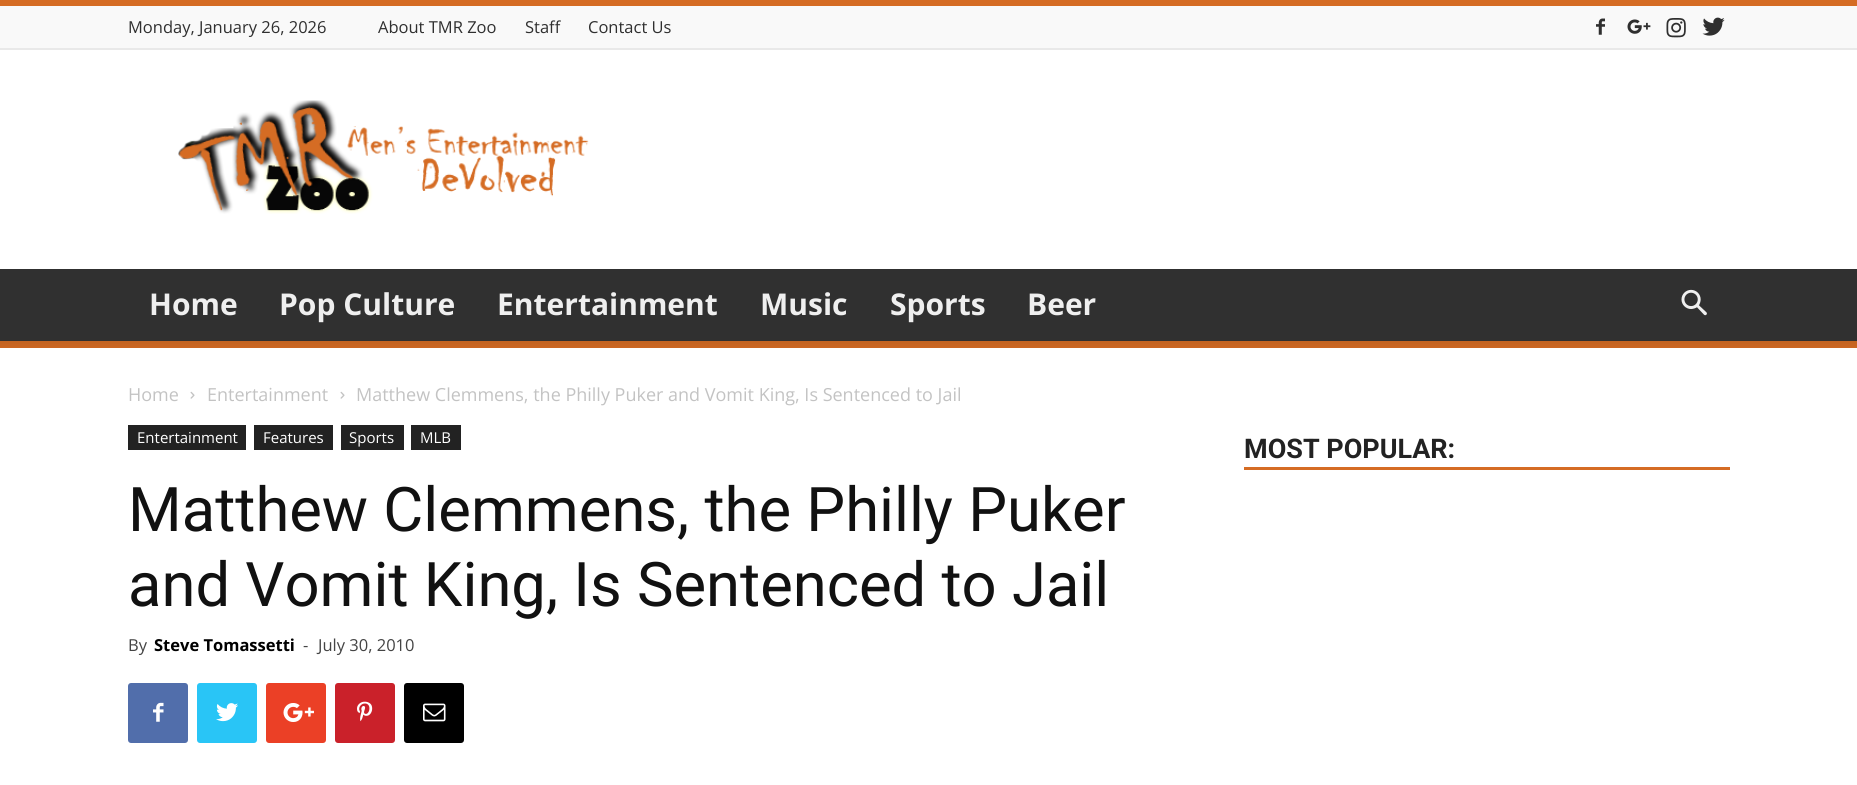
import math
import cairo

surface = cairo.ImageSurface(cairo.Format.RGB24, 1857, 785)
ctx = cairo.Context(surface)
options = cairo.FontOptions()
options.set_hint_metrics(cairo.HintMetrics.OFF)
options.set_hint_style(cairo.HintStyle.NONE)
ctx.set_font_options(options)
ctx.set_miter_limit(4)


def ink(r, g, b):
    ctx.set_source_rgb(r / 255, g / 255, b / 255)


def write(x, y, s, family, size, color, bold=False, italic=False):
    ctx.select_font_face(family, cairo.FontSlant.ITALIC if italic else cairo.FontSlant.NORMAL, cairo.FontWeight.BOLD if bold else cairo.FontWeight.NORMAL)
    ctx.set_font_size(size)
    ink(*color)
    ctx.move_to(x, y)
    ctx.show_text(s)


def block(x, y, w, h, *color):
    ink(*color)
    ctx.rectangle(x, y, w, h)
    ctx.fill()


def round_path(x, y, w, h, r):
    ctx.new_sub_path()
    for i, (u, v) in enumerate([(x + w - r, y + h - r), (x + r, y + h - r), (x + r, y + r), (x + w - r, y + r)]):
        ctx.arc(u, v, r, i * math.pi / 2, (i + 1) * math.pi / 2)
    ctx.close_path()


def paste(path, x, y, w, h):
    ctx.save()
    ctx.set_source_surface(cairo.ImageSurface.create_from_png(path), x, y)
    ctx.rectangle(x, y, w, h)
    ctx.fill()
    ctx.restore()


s1 = dict(family="Open Sans", size=16.5, color=(47, 47, 47))
s2 = dict(family="Open Sans", size=30, color=(239, 239, 239), bold=True)
s3 = dict(family="Open Sans", size=18, color=(195, 195, 195))
s4 = dict(family="Open Sans", size=15, color=(255, 255, 255))
s5 = dict(family="Roboto", size=61.5, color=(17, 17, 17))
s6 = dict(family="Open Sans", size=16.5, color=(68, 68, 68))
s7 = dict(family="Open Sans", size=16.5, color=(0, 0, 0), bold=True)
s8 = dict(family="Roboto", size=27, color=(34, 34, 34), bold=True)

ink(255, 255, 255)
ctx.paint()
block(0, 6, 1857, 42, 249, 249, 249)
block(0, 0, 1857, 6, 213, 108, 36)
block(0, 48, 1857, 2, 233, 233, 233)
write(128, 33, "Monday, January 26, 2026", **s1)
write(378, 33, "About TMR Zoo", **s1)
write(525, 33, "Staff", **s1)
write(588, 33, "Contact Us", **s1)
paste("pic1.png", 1596, 18, 9, 17)
paste("pic2.png", 1627, 19, 24, 15)
paste("pic3.png", 1666, 18, 20, 20)
paste("pic4.png", 1702, 17, 23, 19)
paste("pic5.png", 178, 100, 411, 114)
block(0, 269, 1857, 72, 48, 48, 48)
write(149, 315, "Home", **s2)
write(279, 315, "Pop Culture", **s2)
write(497, 315, "Entertainment", **s2)
write(760, 315, "Music", **s2)
write(890, 315, "Sports", **s2)
write(1027, 315, "Beer", **s2)
paste("pic6.png", 1681, 289, 26, 27)
block(0, 341, 1857, 7, 213, 108, 36)
paste("pic7.png", 0, 341, 1857, 7)
write(128, 401, "Home", **s3)
paste("pic8.png", 190, 391, 5, 8)
write(207, 401, "Entertainment", **s3)
paste("pic8.png", 340, 391, 5, 8)
write(356, 401, "Matthew Clemmens, the Philly Puker and Vomit King, Is Sentenced to Jail", **s3)
block(128, 425, 118, 25, 34, 34, 34)
write(137, 443, "Entertainment", **s4)
block(254, 425, 79, 25, 34, 34, 34)
write(263, 443, "Features", **s4)
block(341, 425, 63, 25, 34, 34, 34)
write(349, 443, "Sports", **s4)
block(411, 425, 50, 25, 34, 34, 34)
write(420, 443, "MLB", **s4)
write(128, 531, "Matthew Clemmens, the Philly Puker", **s5)
write(128, 606, "and Vomit King, Is Sentenced to Jail", **s5)
write(128, 651, "By", **s6)
write(154, 651, "Steve Tomassetti", **s7)
write(303, 651, "-", **s6)
write(318, 651, "July 30, 2010", **s6)
ink(81, 110, 171)
round_path(128, 683, 60, 60, 3)
ctx.fill()
paste("pic9.png", 153, 702, 11, 20)
ink(41, 197, 246)
round_path(197, 683, 60, 60, 3)
ctx.fill()
paste("pic10.png", 216, 703, 22, 19)
ink(235, 64, 38)
round_path(266, 683, 60, 60, 3)
ctx.fill()
paste("pic11.png", 283, 703, 31, 19)
ink(202, 33, 42)
round_path(335, 683, 60, 60, 3)
ctx.fill()
paste("pic12.png", 357, 701, 16, 21)
ink(0, 0, 0)
round_path(404, 683, 60, 60, 3)
ctx.fill()
paste("pic13.png", 423, 703, 23, 19)
block(1244, 467, 486, 3, 213, 108, 36)
write(1244, 458, "MOST POPULAR:", **s8)
surface.write_to_png("screenshot.png")
